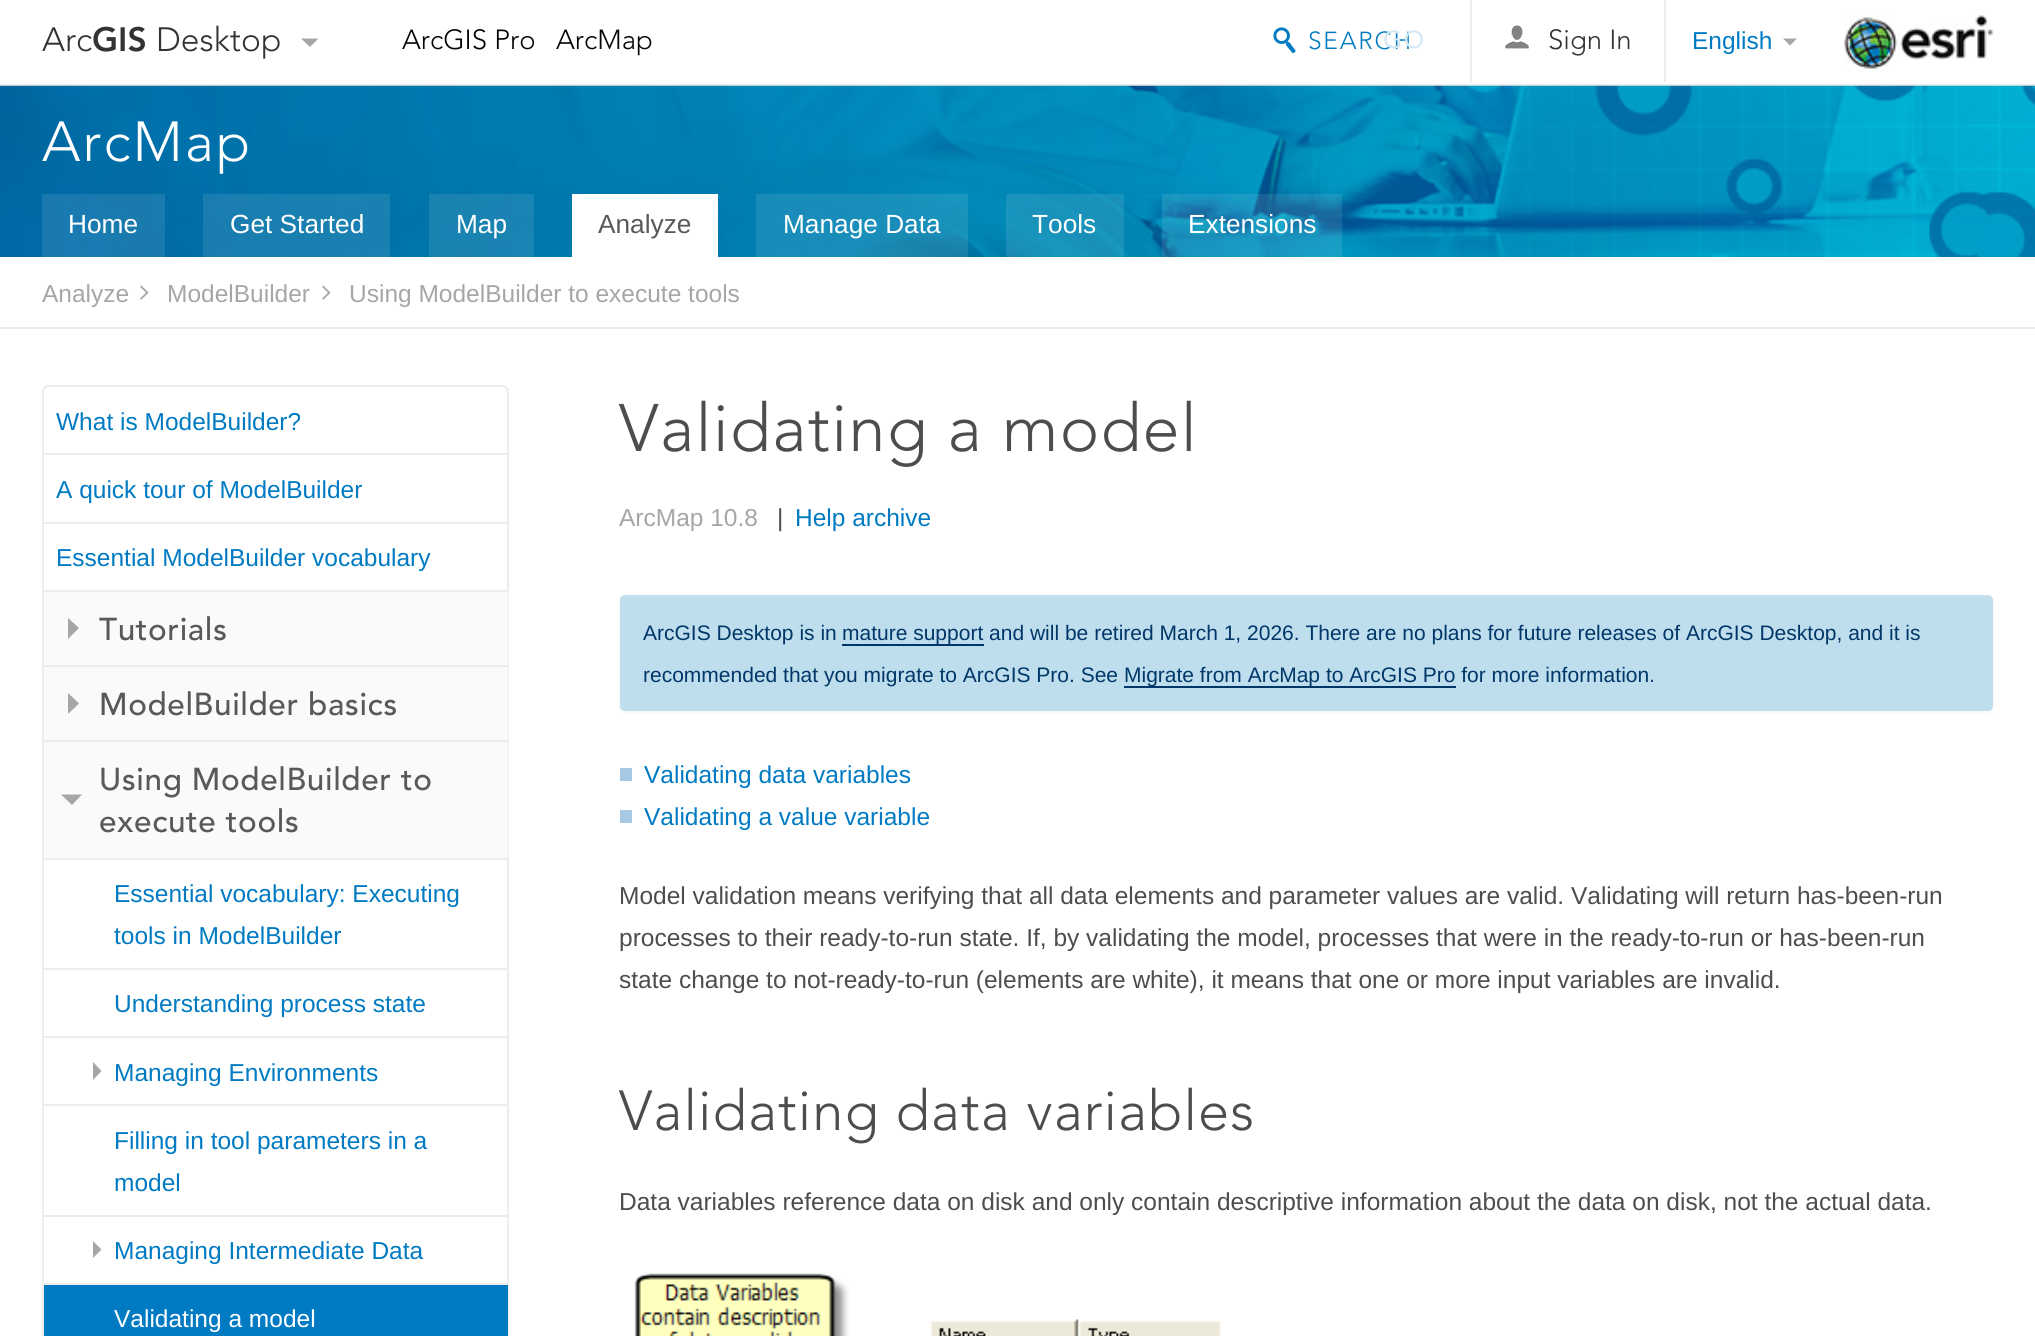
import math
import cairo

surface = cairo.ImageSurface(cairo.Format.RGB24, 2035, 1336)
ctx = cairo.Context(surface)
options = cairo.FontOptions()
options.set_hint_metrics(cairo.HintMetrics.OFF)
options.set_hint_style(cairo.HintStyle.NONE)
ctx.set_font_options(options)
ctx.set_miter_limit(4)


def ink(r, g, b):
    ctx.set_source_rgb(r / 255, g / 255, b / 255)


def write(x, y, s, family, size, color, bold=False, italic=False):
    ctx.select_font_face(family, cairo.FontSlant.ITALIC if italic else cairo.FontSlant.NORMAL, cairo.FontWeight.BOLD if bold else cairo.FontWeight.NORMAL)
    ctx.set_font_size(size)
    ink(*color)
    ctx.move_to(x, y)
    ctx.show_text(s)


def write_spaced(x, y, s, letter, word):
    ctx.move_to(x, y)
    for ch in s:
        ctx.show_text(ch)
        ctx.rel_move_to(letter + word * (ch == ' '), 0)


def block(x, y, w, h, *color):
    ink(*color)
    ctx.rectangle(x, y, w, h)
    ctx.fill()


def round_path(x, y, w, h, r):
    ctx.new_sub_path()
    for i, (u, v) in enumerate([(x + w - r, y + h - r), (x + r, y + h - r), (x + r, y + r), (x + w - r, y + r)]):
        ctx.arc(u, v, r, i * math.pi / 2, (i + 1) * math.pi / 2)
    ctx.close_path()


def blur_box(x, y, w, h, r, blur, alpha):
    ctx.push_group_with_content(cairo.Content.ALPHA)
    ctx.set_operator(cairo.Operator.SOURCE)
    for i in range(15, -16, -2):
        e = blur * i / 6
        if min(w, h) + 2 * e > 0:
            ctx.set_source_rgba(0, 0, 0, alpha * math.erfc((i - 1) / 8.5) / 2)
            round_path(x - e, y - e, w + 2 * e, h + 2 * e, max(0, min(r + e + blur * .6, min(w, h) / 2 + e)))
            ctx.fill()
    ctx.mask(ctx.pop_group())


def paste(path, x, y, w, h):
    ctx.save()
    ctx.set_source_surface(cairo.ImageSurface.create_from_png(path), x, y)
    ctx.rectangle(x, y, w, h)
    ctx.fill()
    ctx.restore()


s1 = dict(family="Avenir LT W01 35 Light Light", size=33.5, color=(51, 51, 51))
s2 = dict(family="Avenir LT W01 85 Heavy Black", size=33.5, color=(51, 51, 51))
s3 = dict(family="Avenir LT W01 35 Light Light", size=27.5, color=(5, 5, 5))
s4 = dict(family="Avenir LT W01 35 Light Light", size=27.5, color=(51, 51, 51))
s5 = dict(family="Liberation Sans", size=24.5, color=(0, 122, 194))
s6 = dict(family="Liberation Sans", size=26.25, color=(255, 255, 255))
s7 = dict(family="Liberation Sans", size=26.25, color=(89, 89, 89))
s8 = dict(family="Liberation Sans", size=24.5, color=(166, 166, 166))
s9 = dict(family="Liberation Sans", size=24.5, color=(255, 255, 255))
s10 = dict(family="Liberation Sans", size=24.5, color=(77, 77, 77))
s11 = dict(family="Liberation Sans", size=21, color=(0, 55, 104))

ink(255, 255, 255)
ctx.paint()
block(0, 84, 2035, 2, 237, 237, 237)
write(42, 51, "Arc", **s1)
write(92, 51, "GIS", **s2)
write(156, 51, "Desktop", **s1)
ink(166, 166, 166)
ctx.new_path()
ctx.move_to(301, 38.5)
ctx.line_to(318.5, 38.5)
ctx.line_to(310, 47)
ctx.close_path()
ctx.fill()
write(402, 49, "ArcGIS Pro", **s3)
write(556, 49, "ArcMap", **s3)
paste("pic1.png", 1273, 27, 23, 27)
ctx.set_font_size(24.5)
ink(0, 122, 194)
write_spaced(1308, 49, "SEARCH", 1.75, 0)
ctx.select_font_face("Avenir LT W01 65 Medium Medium")
ink(213, 233, 245)
write_spaced(1383, 48, "GO", 1.75, 0)
block(1664, 0, 2, 82, 237, 237, 237)
block(1470, 0, 2, 82, 237, 237, 237)
paste("pic2.png", 1505, 25, 24, 24)
write(1548, 49, "Sign In", **s4)
write(1692, 49, "English", **s5)
ink(166, 166, 166)
ctx.new_path()
ctx.move_to(1783, 38.5)
ctx.line_to(1797, 38.5)
ctx.line_to(1790, 45.5)
ctx.close_path()
ctx.fill()
paste("pic3.png", 1844, 14, 150, 58)
paste("pic4.png", 0, 85, 2035, 172)
ctx.select_font_face("Avenir LT W01 35 Light Light")
ctx.set_font_size(56)
ink(255, 255, 255)
write_spaced(42, 161, "ArcMap", 2.25, 0)
ctx.set_source_rgba(1, 1, 1, 0.1)
ctx.rectangle(42, 194, 123, 63)
ctx.fill()
write(68, 233, "Home", **s6)
ctx.set_source_rgba(1, 1, 1, 0.1)
ctx.rectangle(203, 194, 187, 63)
ctx.fill()
write(230, 233, "Get Started", **s6)
ctx.set_source_rgba(1, 1, 1, 0.1)
ctx.rectangle(429, 194, 105, 63)
ctx.fill()
write(456, 233, "Map", **s6)
block(572, 194, 146, 63, 255, 255, 255)
write(598, 233, "Analyze", **s7)
ctx.set_source_rgba(1, 1, 1, 0.1)
ctx.rectangle(756, 194, 212, 63)
ctx.fill()
write(783, 233, "Manage Data", **s6)
ctx.set_source_rgba(1, 1, 1, 0.1)
ctx.rectangle(1006, 194, 118, 63)
ctx.fill()
write(1032, 233, "Tools", **s6)
ctx.set_source_rgba(1, 1, 1, 0.1)
ctx.rectangle(1162, 194, 180, 63)
ctx.fill()
write(1188, 233, "Extensions", **s6)
block(0, 327, 2035, 2, 237, 237, 237)
write(42, 302, "Analyze", **s8)
paste("pic5.png", 140, 285, 9, 15)
write(167, 302, "ModelBuilder", **s8)
paste("pic5.png", 322, 285, 9, 15)
write(349, 302, "Using ModelBuilder to execute tools", **s8)
round_path(43, 386, 465, 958, 6)
ink(237, 237, 237)
ctx.stroke()
block(44, 453, 464, 2, 237, 237, 237)
write(56, 430, "What is ModelBuilder?", **s5)
block(44, 522, 464, 2, 237, 237, 237)
write(56, 498, "A quick tour of ModelBuilder", **s5)
block(44, 590, 464, 2, 237, 237, 237)
write(56, 566, "Essential ModelBuilder vocabulary", **s5)
block(44, 592, 464, 73, 250, 250, 250)
block(44, 665, 464, 2, 237, 237, 237)
ink(166, 166, 166)
ctx.new_path()
ctx.move_to(68, 639)
ctx.line_to(68, 618)
ctx.line_to(79, 628)
ctx.close_path()
ctx.fill()
ctx.select_font_face("Avenir LT W01 65 Medium Medium")
ctx.set_font_size(31.5)
ink(89, 89, 89)
write_spaced(99, 640, "Tutorials", 0.6, 0)
block(44, 667, 464, 73, 250, 250, 250)
block(44, 740, 464, 2, 237, 237, 237)
ink(166, 166, 166)
ctx.new_path()
ctx.move_to(68, 714)
ctx.line_to(68, 693)
ctx.line_to(79, 703.5)
ctx.close_path()
ctx.fill()
ink(89, 89, 89)
write_spaced(99, 715, "ModelBuilder basics", 0.6, 0)
block(44, 742, 464, 116, 250, 250, 250)
block(44, 858, 464, 2, 237, 237, 237)
ink(89, 89, 89)
write_spaced(99, 790, "Using ModelBuilder to", 0.6, 0)
ink(166, 166, 166)
ctx.new_path()
ctx.move_to(61, 794.5)
ctx.line_to(82, 794.5)
ctx.line_to(72, 805)
ctx.close_path()
ctx.fill()
ink(89, 89, 89)
write_spaced(99, 832, "execute tools", 0.6, 0)
block(44, 968, 464, 2, 237, 237, 237)
write(114, 902, "Essential vocabulary: Executing", **s5)
write(114, 944, "tools in ModelBuilder", **s5)
block(44, 1036, 464, 2, 237, 237, 237)
write(114, 1012, "Understanding process state", **s5)
block(44, 1104, 464, 2, 237, 237, 237)
ink(166, 166, 166)
ctx.new_path()
ctx.move_to(93, 1080)
ctx.line_to(93, 1062)
ctx.line_to(101.5, 1071)
ctx.close_path()
ctx.fill()
write(114, 1081, "Managing Environments", **s5)
block(44, 1215, 464, 2, 237, 237, 237)
write(114, 1149, "Filling in tool parameters in a", **s5)
write(114, 1191, "model", **s5)
block(44, 1283, 464, 2, 237, 237, 237)
ink(166, 166, 166)
ctx.new_path()
ctx.move_to(93, 1258)
ctx.line_to(93, 1241)
ctx.line_to(101.5, 1249.5)
ctx.close_path()
ctx.fill()
write(114, 1259, "Managing Intermediate Data", **s5)
block(44, 1285, 464, 51, 0, 122, 194)
write(114, 1327, "Validating a model", **s9)
ctx.select_font_face("Avenir LT W01 35 Light Light")
ctx.set_font_size(66.5)
ink(77, 77, 77)
write_spaced(619, 451, "Validating a model", 1.3, 0)
write(619, 526, "ArcMap 10.8", **s8)
write(777, 526, "|", **s10)
write(795, 526, "Help archive", **s5)
ink(0, 0, 0)
blur_box(620, 597, 1373, 115, 5, 2, 0.05)
ink(190, 221, 237)
round_path(620, 595, 1373, 116, 5)
ctx.fill()
ctx.set_source_rgba(1, 1, 1, 0.1)
ctx.new_path()
ctx.move_to(625, 597)
ctx.line_to(1988, 597)
ctx.curve_to(1991, 597, 1993, 599, 1993, 602)
ctx.curve_to(1993, 599, 1992, 595, 1988, 595)
ctx.line_to(625, 595)
ctx.curve_to(621, 595, 620, 599, 620, 602)
ctx.curve_to(620, 599, 622, 597, 625, 597)
ctx.close_path()
ctx.fill()
write(643, 640, "ArcGIS Desktop is in", **s11)
block(842, 644, 142, 2, 0, 55, 104)
write(842, 640, "mature support and will be retired March 1, 2026. There are no plans for future releases of ArcGIS Desktop, and it is", **s11)
write(643, 682, "recommended that you migrate to ArcGIS Pro. See", **s11)
block(1124, 686, 332, 2, 0, 55, 104)
write(1124, 682, "Migrate from ArcMap to ArcGIS Pro for more information.", **s11)
block(620, 768, 12, 13, 168, 201, 227)
write(644, 783, "Validating data variables", **s5)
block(620, 810, 12, 13, 168, 201, 227)
write(644, 825, "Validating a value variable", **s5)
write(619, 904, "Model validation means verifying that all data elements and parameter values are valid. Validating will return has-been-run", **s10)
write(619, 946, "processes to their ready-to-run state. If, by validating the model, processes that were in the ready-to-run or has-been-run", **s10)
write(619, 988, "state change to not-ready-to-run (elements are white), it means that one or more input variables are invalid.", **s10)
ctx.select_font_face("Avenir LT W01 35 Light Light")
ctx.set_font_size(56)
write_spaced(619, 1130, "Validating data variables", 1.1, 0)
write(619, 1210, "Data variables reference data on disk and only contain descriptive information about the data on disk, not the actual data.", **s10)
paste("pic6.png", 634, 1273, 587, 63)
surface.write_to_png("screenshot.png")
